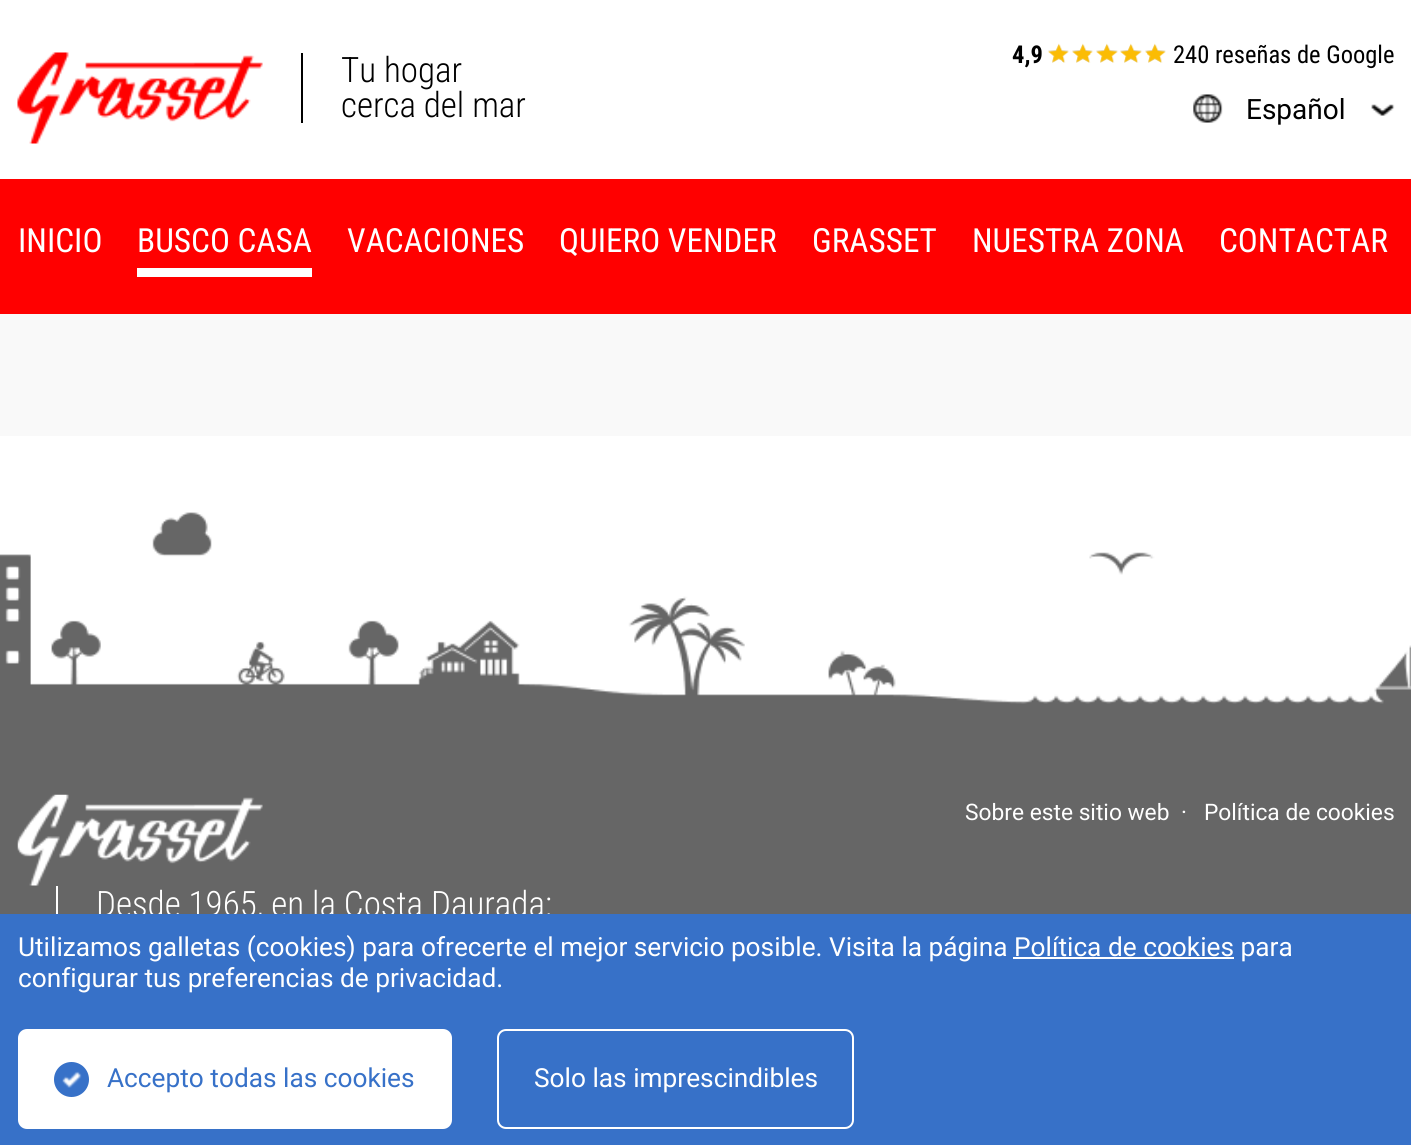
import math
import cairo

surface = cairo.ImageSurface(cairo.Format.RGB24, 1411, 1145)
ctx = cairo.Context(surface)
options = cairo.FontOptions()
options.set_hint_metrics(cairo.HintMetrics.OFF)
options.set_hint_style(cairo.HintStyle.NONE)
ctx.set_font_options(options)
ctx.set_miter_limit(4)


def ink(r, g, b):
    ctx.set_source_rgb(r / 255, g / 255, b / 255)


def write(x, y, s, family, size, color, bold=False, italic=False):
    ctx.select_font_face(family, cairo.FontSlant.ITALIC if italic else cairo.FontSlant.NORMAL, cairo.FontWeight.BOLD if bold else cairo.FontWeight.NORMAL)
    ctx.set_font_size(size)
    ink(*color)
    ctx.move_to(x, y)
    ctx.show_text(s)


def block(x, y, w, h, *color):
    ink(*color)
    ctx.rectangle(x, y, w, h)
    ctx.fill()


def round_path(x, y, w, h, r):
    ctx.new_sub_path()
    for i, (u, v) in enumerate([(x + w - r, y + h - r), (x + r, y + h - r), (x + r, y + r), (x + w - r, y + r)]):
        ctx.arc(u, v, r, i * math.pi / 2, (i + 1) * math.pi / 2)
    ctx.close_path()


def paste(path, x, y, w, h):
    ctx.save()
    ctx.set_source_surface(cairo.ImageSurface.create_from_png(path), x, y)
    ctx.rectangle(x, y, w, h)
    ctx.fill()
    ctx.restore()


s1 = dict(family="Roboto Condensed Light", size=35, color=(0, 0, 0))
s2 = dict(family="Roboto Condensed", size=24.5, color=(0, 0, 0), bold=True)
s3 = dict(family="Roboto Condensed", size=24.5, color=(0, 0, 0))
s4 = dict(family="Roboto", size=28, color=(0, 0, 0))
s5 = dict(family="Roboto Condensed", size=33.25, color=(255, 255, 255))
s6 = dict(family="Roboto", size=22.75, color=(255, 255, 255))
s7 = dict(family="Roboto Condensed Light", size=35, color=(255, 255, 255))
s8 = dict(family="Roboto", size=26.25, color=(255, 255, 255))
s9 = dict(family="Roboto", size=26.25, color=(55, 113, 200))

ink(249, 249, 249)
ctx.paint()
block(0, 0, 1411, 179, 255, 255, 255)
paste("pic1.png", 17, 52, 246, 92)
block(301, 53, 2, 70, 0, 0, 0)
write(341, 82, "Tu hogar", **s1)
write(341, 117, "cerca del mar", **s1)
write(1012, 63, "4,9", **s2)
paste("pic2.png", 1048, 44, 118, 19)
paste("pic3.png", 1048, 43, 118, 20)
write(1173, 63, "240 reseñas de Google", **s3)
paste("pic4.png", 1193, 94, 30, 29)
write(1246, 119, "Español", **s4)
paste("pic5.png", 1371, 104, 24, 12)
block(0, 179, 1411, 135, 255, 0, 0)
write(18, 252, "INICIO", **s5)
block(137, 268, 175, 9, 255, 255, 255)
write(137, 252, "BUSCO CASA", **s5)
write(347, 252, "VACACIONES", **s5)
write(559, 252, "QUIERO VENDER", **s5)
write(812, 252, "GRASSET", **s5)
write(972, 252, "NUESTRA ZONA", **s5)
write(1219, 252, "CONTACTAR", **s5)
block(0, 704, 1411, 210, 102, 102, 102)
paste("pic6.png", 0, 471, 1411, 233)
block(0, 436, 1411, 35, 255, 255, 255)
write(965, 820, "Sobre este sitio web", **s6)
write(1181, 820, "·", **s6)
write(1204, 820, "Política de cookies", **s6)
paste("pic7.png", 17, 794, 246, 92)
block(56, 886, 2, 28, 255, 255, 255)
write(96, 916, "Desde 1965, en la Costa Daurada:", **s7)
block(0, 914, 1411, 231, 55, 113, 200)
write(18, 956, "Utilizamos galletas (cookies) para ofrecerte el mejor servicio posible. Visita la página Política de cookies para", **s8)
block(1013, 957, 221, 2, 255, 255, 255)
write(18, 987, "configurar tus preferencias de privacidad.", **s8)
round_path(19, 1030, 432, 98, 8)
ctx.fill_preserve()
ctx.stroke()
ink(55, 113, 200)
ctx.arc(71.5, 1079.5, 17.5, 0, 2 * math.pi)
ctx.fill()
paste("pic8.png", 62, 1071, 20, 17)
write(107, 1087, "Accepto todas las cookies", **s9)
round_path(498, 1030, 355, 98, 8)
ink(255, 255, 255)
ctx.stroke()
write(534, 1087, "Solo las imprescindibles", **s8)
surface.write_to_png("screenshot.png")
